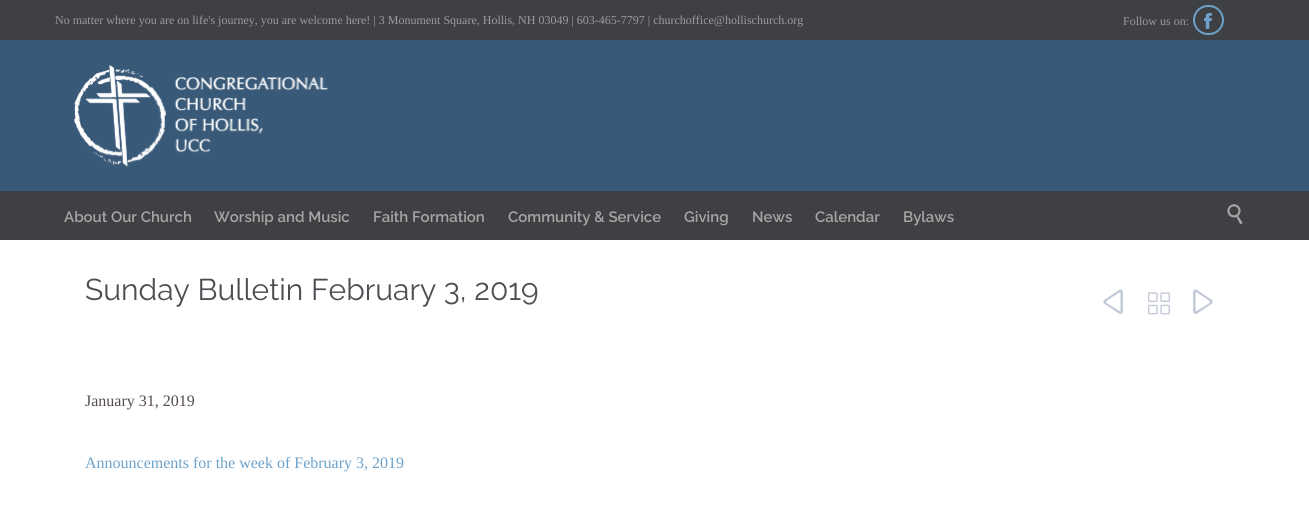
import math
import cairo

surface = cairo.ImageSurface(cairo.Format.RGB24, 1309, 526)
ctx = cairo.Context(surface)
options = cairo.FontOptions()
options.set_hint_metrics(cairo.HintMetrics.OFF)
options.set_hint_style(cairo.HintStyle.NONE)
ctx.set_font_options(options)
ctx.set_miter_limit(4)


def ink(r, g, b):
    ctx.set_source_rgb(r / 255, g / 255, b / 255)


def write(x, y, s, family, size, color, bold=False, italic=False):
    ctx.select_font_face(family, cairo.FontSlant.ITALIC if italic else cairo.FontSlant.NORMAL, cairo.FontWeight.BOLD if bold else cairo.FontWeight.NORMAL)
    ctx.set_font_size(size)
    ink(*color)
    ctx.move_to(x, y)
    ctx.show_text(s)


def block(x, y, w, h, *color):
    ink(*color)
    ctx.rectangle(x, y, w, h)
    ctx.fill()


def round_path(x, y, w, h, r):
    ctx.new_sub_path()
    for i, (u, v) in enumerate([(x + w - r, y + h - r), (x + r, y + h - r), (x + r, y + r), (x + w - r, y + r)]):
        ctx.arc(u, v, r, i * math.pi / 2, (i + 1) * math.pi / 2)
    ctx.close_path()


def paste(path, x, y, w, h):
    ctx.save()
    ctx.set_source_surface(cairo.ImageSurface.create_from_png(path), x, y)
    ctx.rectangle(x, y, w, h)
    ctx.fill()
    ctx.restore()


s1 = dict(family="Liberation Serif", size=12, color=(155, 155, 155))
s2 = dict(family="Raleway SemiBold", size=15, color=(170, 164, 164))
s3 = dict(family="Raleway", size=30, color=(77, 78, 83))
s4 = dict(family="Liberation Serif", size=16, color=(84, 75, 75))
s5 = dict(family="Liberation Serif", size=16, color=(108, 162, 203))

ink(255, 255, 255)
ctx.paint()
block(0, 40, 1309, 151, 57, 89, 120)
block(0, 0, 1309, 40, 62, 64, 67)
write(55, 24, "No matter where you are on life's journey, you are welcome here! | 3 Monument Square, Hollis, NH 03049 | 603-465-7797 | churchoffice@hollischurch.org", **s1)
write(1123, 25, "Follow us on:", **s1)
round_path(1194, 6, 29, 28, 14)
ink(108, 162, 203)
ctx.stroke()
paste("pic1.png", 1204, 13, 8, 16)
paste("pic2.png", 74, 65, 254, 102)
block(0, 191, 1309, 49, 62, 64, 67)
write(64, 222, "About Our Church", **s2)
write(214, 222, "Worship and Music", **s2)
write(373, 222, "Faith Formation", **s2)
write(508, 222, "Community & Service", **s2)
write(684, 222, "Giving", **s2)
write(752, 222, "News", **s2)
write(815, 222, "Calendar", **s2)
write(903, 222, "Bylaws", **s2)
paste("pic3.png", 1227, 204, 16, 21)
write(85, 300, "Sunday Bulletin February 3, 2019", **s3)
paste("pic4.png", 1103, 289, 20, 25)
paste("pic5.png", 1148, 292, 22, 23)
paste("pic6.png", 1193, 289, 20, 25)
write(85, 406, "January 31, 2019", **s4)
write(85, 468, "Announcements for the week of February 3, 2019", **s5)
surface.write_to_png("screenshot.png")
